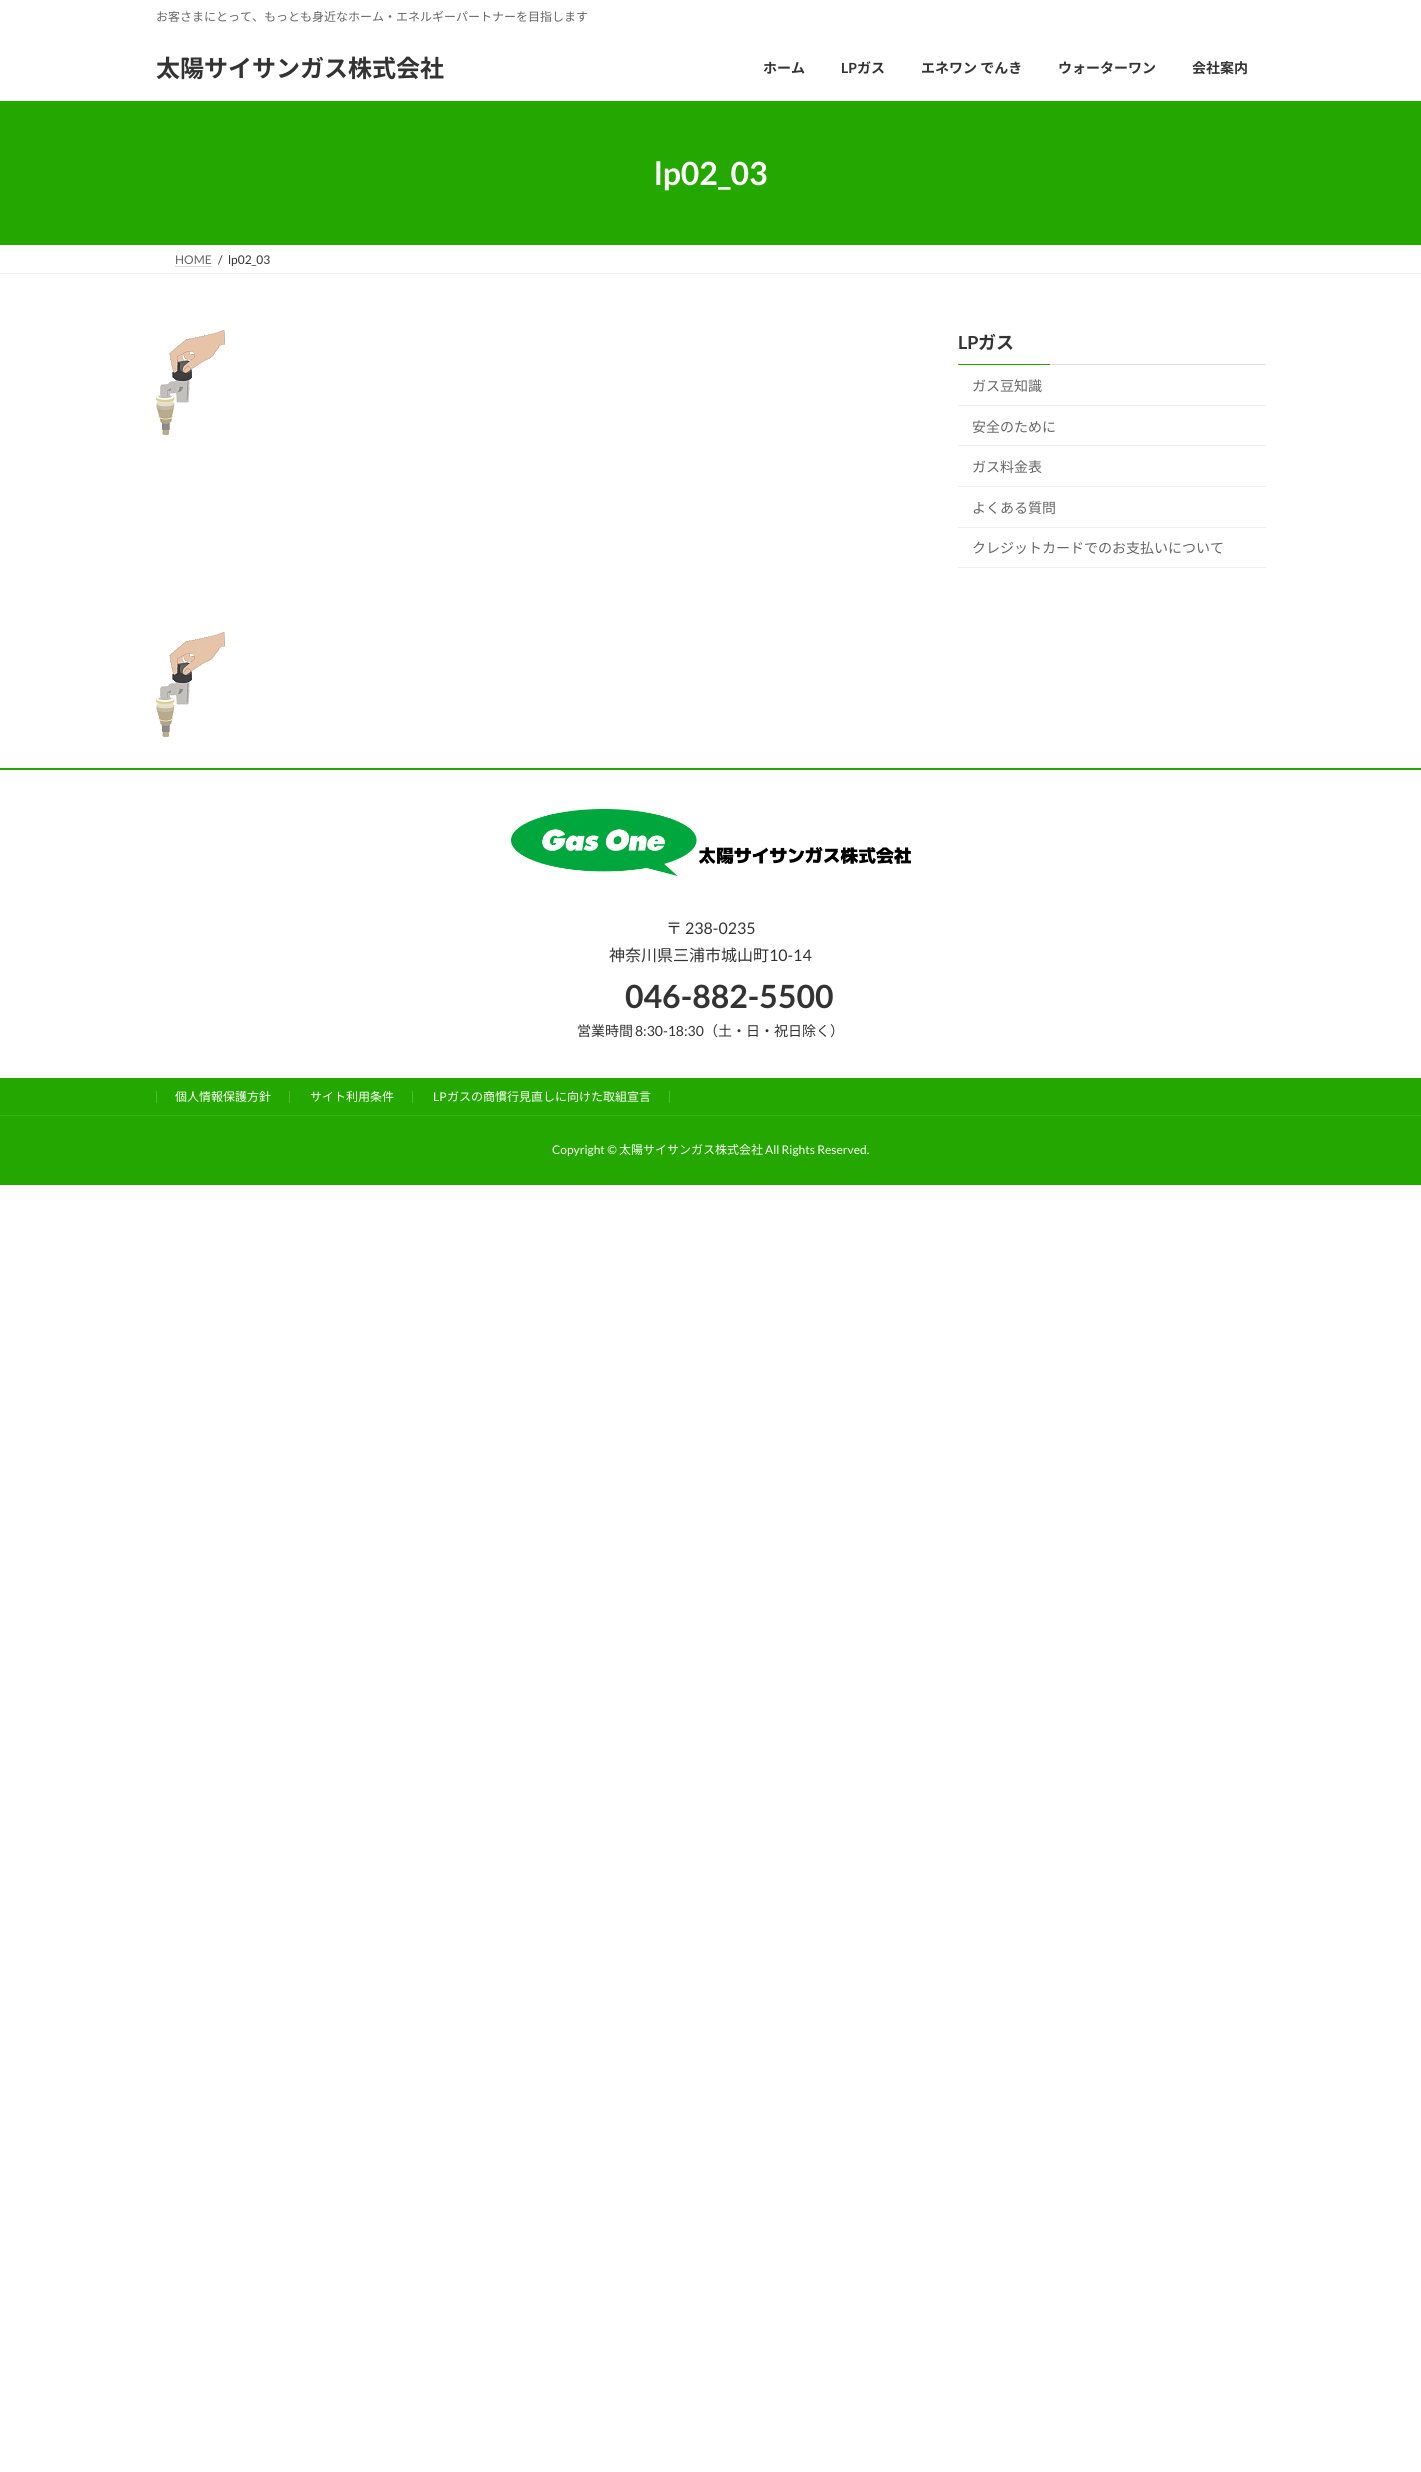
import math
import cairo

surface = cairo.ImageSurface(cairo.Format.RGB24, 1421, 2472)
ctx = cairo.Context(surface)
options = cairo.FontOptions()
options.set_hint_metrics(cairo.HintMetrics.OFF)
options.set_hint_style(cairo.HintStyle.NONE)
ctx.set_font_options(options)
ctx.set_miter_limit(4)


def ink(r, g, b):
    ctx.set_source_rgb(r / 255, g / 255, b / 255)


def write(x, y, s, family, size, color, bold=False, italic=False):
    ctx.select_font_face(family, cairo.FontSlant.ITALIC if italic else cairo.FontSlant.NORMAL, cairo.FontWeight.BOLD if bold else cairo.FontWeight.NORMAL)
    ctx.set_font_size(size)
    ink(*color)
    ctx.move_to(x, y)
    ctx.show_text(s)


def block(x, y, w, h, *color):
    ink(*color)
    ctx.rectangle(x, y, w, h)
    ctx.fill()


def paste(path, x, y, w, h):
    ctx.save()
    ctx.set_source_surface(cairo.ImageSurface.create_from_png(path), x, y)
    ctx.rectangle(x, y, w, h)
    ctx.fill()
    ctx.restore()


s1 = dict(family="Noto Sans JP", size=12, color=(102, 102, 102))
s2 = dict(family="Noto Sans JP", size=24, color=(51, 51, 51), bold=True)
s3 = dict(family="Noto Sans JP", size=14, color=(51, 51, 51), bold=True)
s4 = dict(family="Lato", size=14, color=(51, 51, 51), bold=True)
s5 = dict(family="Lato", size=32, color=(255, 255, 255), bold=True)
s6 = dict(family="Lato", size=12, color=(102, 102, 102))
s7 = dict(family="Lato", size=12, color=(51, 51, 51))
s8 = dict(family="Lato", size=18, color=(51, 51, 51), bold=True)
s9 = dict(family="Noto Sans JP", size=18, color=(51, 51, 51), bold=True)
s10 = dict(family="Noto Sans JP", size=14, color=(102, 102, 102))
s11 = dict(family="Noto Sans JP", size=16, color=(51, 51, 51))
s12 = dict(family="Lato", size=16, color=(51, 51, 51))
s13 = dict(family="Lato", size=32, color=(51, 51, 51), bold=True)
s14 = dict(family="Noto Sans JP", size=14, color=(51, 51, 51))
s15 = dict(family="Lato", size=14, color=(51, 51, 51))
s16 = dict(family="Noto Sans JP", size=12, color=(255, 255, 255))
s17 = dict(family="Lato", size=12, color=(255, 255, 255))

ink(255, 255, 255)
ctx.paint()
write(156, 21, "お客さまにとって、もっとも身近なホーム・エネルギーパートナーを目指します", **s1)
write(156, 77, "太陽サイサンガス株式会社", **s2)
write(763, 73, "ホーム", **s3)
write(841, 73, "LP", **s4)
write(857, 73, "ガス", **s3)
write(921, 73, "エネワン でんき", **s3)
write(1058, 73, "ウォーターワン", **s3)
write(1192, 73, "会社案内", **s3)
block(0, 101, 1421, 144, 36, 168, 0)
write(654, 185, "lp02_03", **s5)
block(0, 245, 1421, 1, 240, 240, 240)
block(0, 273, 1421, 1, 240, 240, 240)
write(175, 264, "HOME", **s6)
ctx.new_path()
ctx.move_to(175.5, 266.5)
ctx.line_to(212, 266.5)
ink(179, 179, 179)
ctx.set_line_width(1)
ctx.set_dash([1, 1])
ctx.stroke()
write(218, 264, "/", **s7)
write(228, 264, "lp02_03", **s7)
paste("pic1.png", 156, 330, 69, 105)
block(1050, 364, 216, 1, 224, 224, 224)
write(958, 349, "LP", **s8)
write(978, 349, "ガス", **s9)
block(958, 364, 92, 1, 36, 168, 0)
block(958, 405, 308, 1, 240, 240, 240)
write(972, 391, "ガス豆知識", **s10)
block(958, 445, 308, 1, 240, 240, 240)
write(972, 432, "安全のために", **s10)
block(958, 486, 308, 1, 240, 240, 240)
write(972, 472, "ガス料金表", **s10)
block(958, 527, 308, 1, 240, 240, 240)
write(972, 513, "よくある質問", **s10)
block(958, 567, 308, 1, 240, 240, 240)
write(972, 553, "クレジットカードでのお支払いについて", **s10)
paste("pic1.png", 156, 632, 69, 105)
block(0, 768, 1421, 2, 36, 168, 0)
paste("pic2.png", 511, 809, 400, 67)
write(666, 934, "〒", **s11)
write(685, 934, "238-0235", **s12)
write(609, 961, "神奈川県三浦市城山町", **s11)
write(769, 961, "10-14", **s12)
write(625, 1008, "046-882-5500", **s13)
write(577, 1036, "営業時間", **s14)
write(635, 1036, "8:30-18:30", **s15)
write(704, 1036, "（土・日・祝日除く）", **s14)
block(0, 1078, 1421, 107, 36, 168, 0)
block(0, 1115, 1421, 1, 58, 177, 26)
block(289, 1091, 1, 12, 80, 185, 51)
block(156, 1091, 1, 12, 80, 185, 51)
write(175, 1101, "個人情報保護方針", **s16)
block(412, 1091, 1, 12, 80, 185, 51)
write(310, 1101, "サイト利用条件", **s16)
block(669, 1091, 1, 12, 80, 185, 51)
write(433, 1101, "LP", **s17)
write(447, 1101, "ガスの商慣行見直しに向けた取組宣言", **s16)
write(552, 1154, "Copyright ©", **s17)
write(619, 1154, "太陽サイサンガス株式会社", **s16)
write(765, 1154, "All Rights Reserved.", **s17)
surface.write_to_png("screenshot.png")
